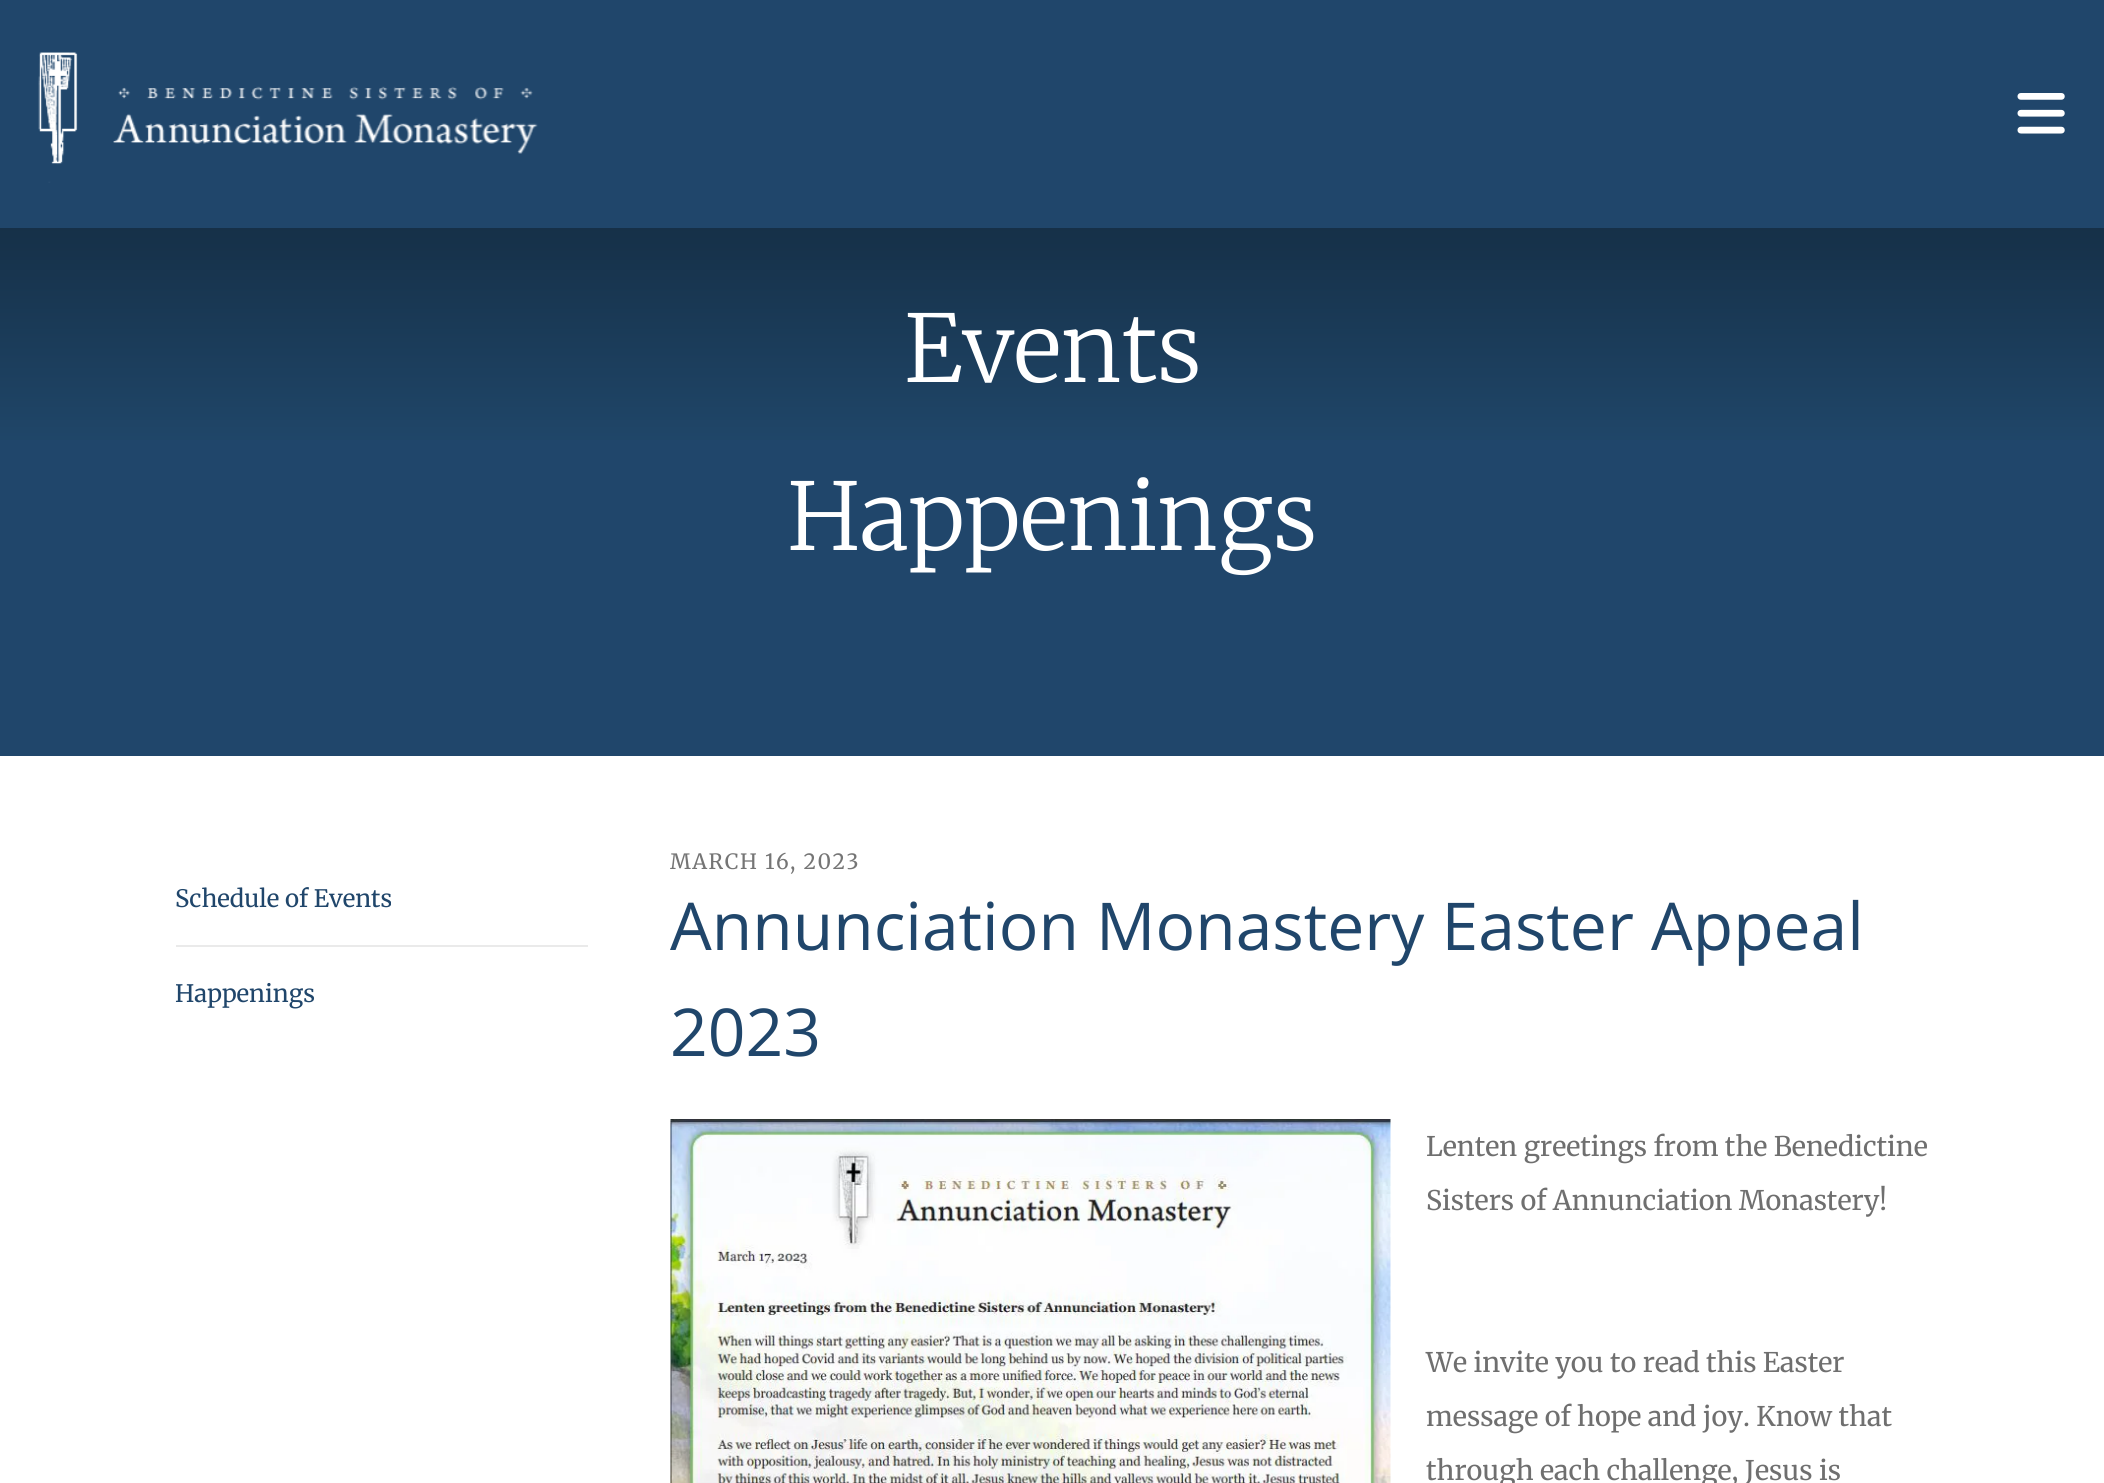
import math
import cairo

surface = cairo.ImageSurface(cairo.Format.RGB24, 2104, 1483)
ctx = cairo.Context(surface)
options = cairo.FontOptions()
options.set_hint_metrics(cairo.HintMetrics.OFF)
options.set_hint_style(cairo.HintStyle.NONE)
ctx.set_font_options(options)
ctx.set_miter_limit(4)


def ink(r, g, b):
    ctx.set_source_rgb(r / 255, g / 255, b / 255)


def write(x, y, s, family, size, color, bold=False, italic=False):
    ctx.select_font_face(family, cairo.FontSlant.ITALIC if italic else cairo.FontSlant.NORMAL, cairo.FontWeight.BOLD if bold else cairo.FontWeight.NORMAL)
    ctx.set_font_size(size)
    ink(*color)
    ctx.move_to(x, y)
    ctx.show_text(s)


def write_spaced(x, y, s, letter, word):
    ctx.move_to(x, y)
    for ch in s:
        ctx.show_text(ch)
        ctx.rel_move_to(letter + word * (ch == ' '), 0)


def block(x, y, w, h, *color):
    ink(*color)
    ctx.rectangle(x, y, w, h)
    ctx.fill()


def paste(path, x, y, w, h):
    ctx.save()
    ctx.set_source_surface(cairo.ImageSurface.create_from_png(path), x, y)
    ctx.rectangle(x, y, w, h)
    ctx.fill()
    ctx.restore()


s1 = dict(family="Merriweather Light", size=93, color=(255, 255, 255))
s2 = dict(family="Merriweather", size=24, color=(32, 70, 107))
s3 = dict(family="Open Sans", size=66, color=(32, 70, 107))
s4 = dict(family="Merriweather", size=27, color=(111, 111, 111))

ink(32, 70, 107)
ctx.paint()
paste("pic1.png", 38, 52, 500, 131)
paste("pic2.png", 2017, 93, 48, 41)
gradient = cairo.LinearGradient(1052, 0, 1052, 450)
gradient.add_color_stop_rgba(0, 0.043, 0.098, 0.145, 1)
gradient.add_color_stop_rgba(1, 0.125, 0.278, 0.416, 1)
ctx.set_source(gradient)
ctx.rectangle(0, 228, 2104, 212)
ctx.fill()
write(904, 382, "Events", **s1)
write(787, 550, "Happenings", **s1)
block(0, 756, 2104, 727, 255, 255, 255)
block(176, 945, 412, 2, 234, 234, 234)
write(175, 907, "Schedule of Events", **s2)
write(175, 1002, "Happenings", **s2)
ctx.set_font_size(21)
ink(117, 117, 117)
write_spaced(670, 869, "MARCH 16, 2023", 1.5, 0)
write(670, 950, "Annunciation Monastery Easter Appeal", **s3)
write(670, 1056, "2023", **s3)
paste("pic3.png", 670, 1119, 721, 364)
write(1426, 1156, "Lenten greetings from the Benedictine", **s4)
write(1426, 1210, "Sisters of Annunciation Monastery!", **s4)
write(1426, 1372, "We invite you to read this Easter", **s4)
write(1426, 1426, "message of hope and joy. Know that", **s4)
write(1426, 1480, "through each challenge, Jesus is", **s4)
surface.write_to_png("screenshot.png")
